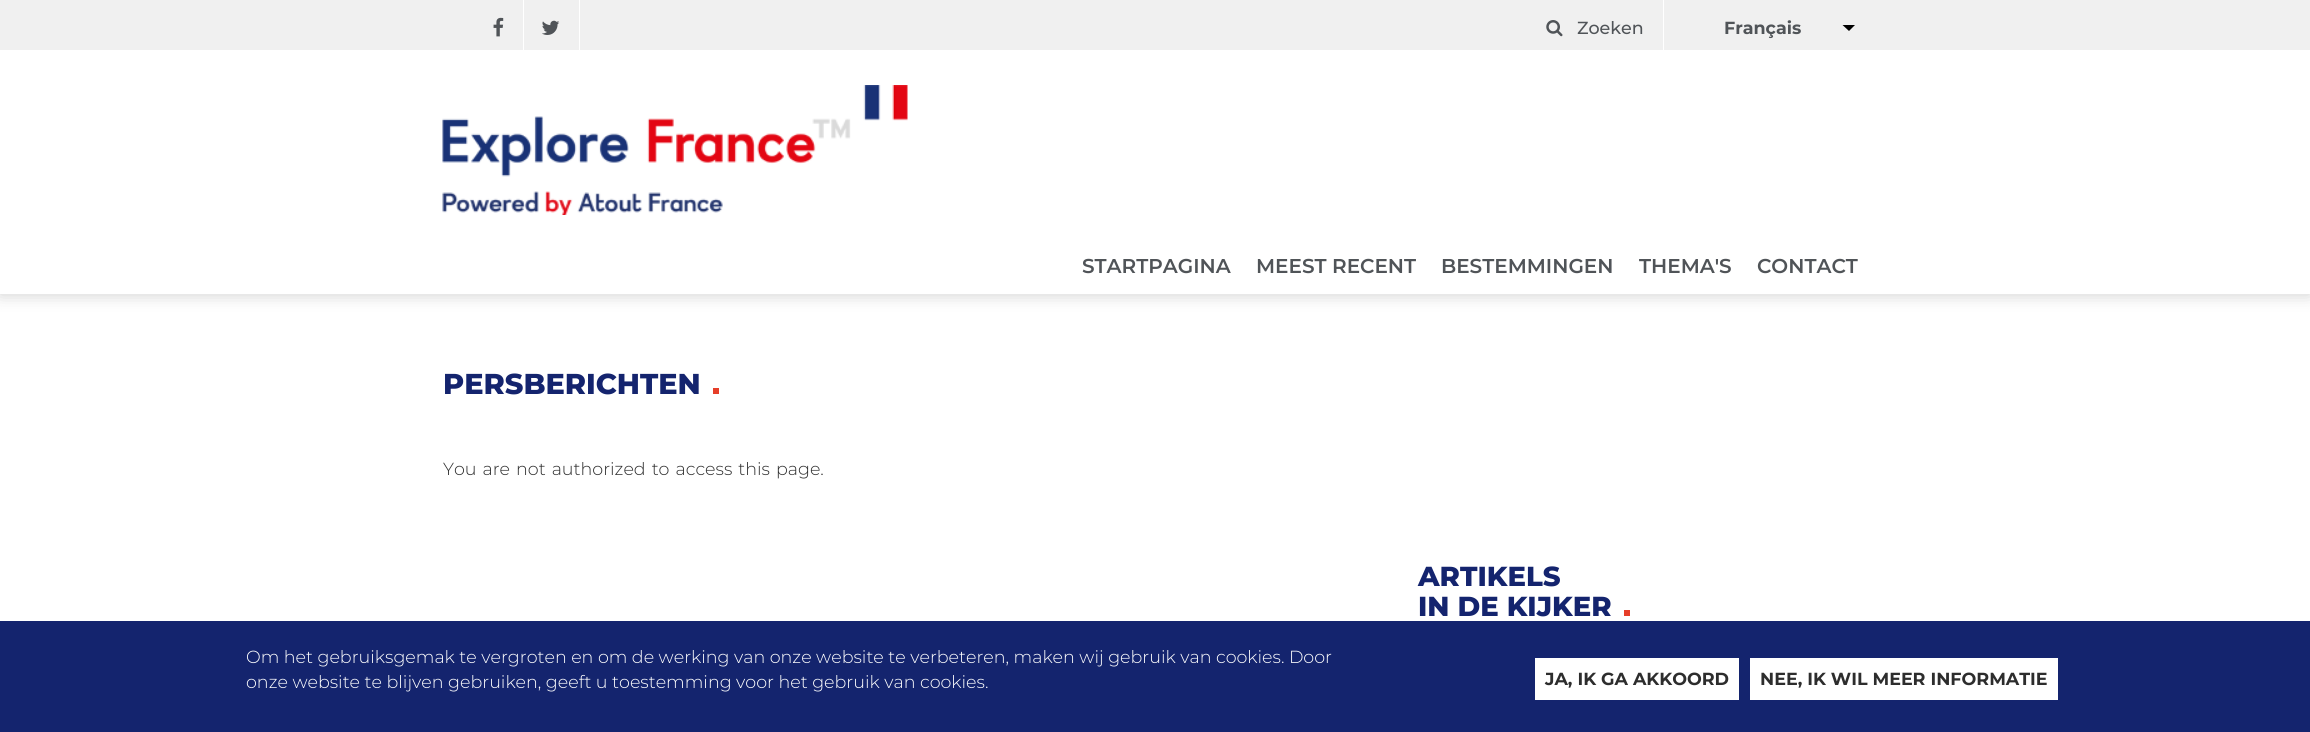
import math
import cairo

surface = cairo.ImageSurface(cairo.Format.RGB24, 2310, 732)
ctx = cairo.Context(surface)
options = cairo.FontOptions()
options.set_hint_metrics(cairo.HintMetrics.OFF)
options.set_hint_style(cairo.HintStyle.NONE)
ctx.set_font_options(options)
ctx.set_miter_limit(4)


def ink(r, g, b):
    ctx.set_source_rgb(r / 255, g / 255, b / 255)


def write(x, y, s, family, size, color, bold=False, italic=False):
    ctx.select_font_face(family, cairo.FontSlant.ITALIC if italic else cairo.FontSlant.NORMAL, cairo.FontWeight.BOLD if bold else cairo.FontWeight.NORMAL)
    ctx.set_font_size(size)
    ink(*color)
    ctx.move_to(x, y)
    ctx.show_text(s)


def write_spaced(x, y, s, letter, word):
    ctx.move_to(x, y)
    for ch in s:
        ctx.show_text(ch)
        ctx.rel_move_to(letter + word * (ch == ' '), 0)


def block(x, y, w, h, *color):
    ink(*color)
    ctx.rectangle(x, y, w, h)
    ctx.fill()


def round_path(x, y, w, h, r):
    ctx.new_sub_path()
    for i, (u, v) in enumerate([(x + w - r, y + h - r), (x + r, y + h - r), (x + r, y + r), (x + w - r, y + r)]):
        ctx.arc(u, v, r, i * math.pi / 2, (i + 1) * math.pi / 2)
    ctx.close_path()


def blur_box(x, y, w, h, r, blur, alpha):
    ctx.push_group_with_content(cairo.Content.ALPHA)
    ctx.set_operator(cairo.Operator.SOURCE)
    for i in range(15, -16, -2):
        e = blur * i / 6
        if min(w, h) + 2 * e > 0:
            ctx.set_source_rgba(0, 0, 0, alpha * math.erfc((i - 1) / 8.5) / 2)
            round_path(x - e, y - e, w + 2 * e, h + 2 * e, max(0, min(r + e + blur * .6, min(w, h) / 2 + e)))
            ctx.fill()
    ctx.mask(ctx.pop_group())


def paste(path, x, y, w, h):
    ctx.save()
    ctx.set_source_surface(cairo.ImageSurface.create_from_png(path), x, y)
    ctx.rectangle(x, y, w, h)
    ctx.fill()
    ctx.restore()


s1 = dict(family="Montserrat Medium", size=17.5, color=(80, 84, 88))
s2 = dict(family="Montserrat", size=17.5, color=(80, 84, 88), bold=True)
s3 = dict(family="Montserrat SemiBold", size=20, color=(80, 84, 88))
s4 = dict(family="Montserrat ExtraBold", size=28.75, color=(20, 36, 110))
s5 = dict(family="Montserrat ExtraBold", size=27.5, color=(20, 36, 110))
s6 = dict(family="Montserrat Light", size=17.5, color=(255, 255, 255))
s7 = dict(family="Montserrat", size=17.5, color=(45, 45, 45), bold=True)

ink(255, 255, 255)
ctx.paint()
ctx.save()
ctx.set_fill_rule(cairo.FillRule.EVEN_ODD)
ctx.new_path()
ctx.move_to(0, 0)
ctx.line_to(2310, 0)
ctx.line_to(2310, 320)
ctx.line_to(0, 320)
ctx.close_path()
ctx.move_to(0, 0)
ctx.line_to(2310, 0)
ctx.line_to(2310, 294)
ctx.line_to(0, 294)
ctx.close_path()
ctx.clip()
ink(29, 29, 28)
blur_box(0, 1, 2310, 294, 0, 8, 0.21)
ctx.restore()
block(0, 0, 2310, 50, 240, 240, 240)
block(523, 0, 1, 56, 255, 255, 255)
paste("pic1.png", 493, 17, 11, 20)
block(579, 0, 1, 56, 255, 255, 255)
paste("pic2.png", 542, 20, 18, 15)
block(1663, 0, 1, 56, 255, 255, 255)
paste("pic3.png", 1546, 20, 17, 17)
write(1577, 34, "Zoeken", **s1)
write(1724, 34, "Français", **s2)
ink(0, 0, 0)
ctx.new_path()
ctx.move_to(1842.5, 25)
ctx.line_to(1855, 25)
ctx.line_to(1849, 31)
ctx.close_path()
ctx.fill()
paste("pic4.png", 442, 85, 466, 130)
block(1083, 293, 148, 1, 255, 255, 255)
write(1082, 273, "STARTPAGINA", **s3)
block(1256, 293, 160, 1, 255, 255, 255)
write(1256, 273, "MEEST RECENT", **s3)
block(1441, 293, 173, 1, 255, 255, 255)
write(1441, 273, "BESTEMMINGEN", **s3)
block(1639, 293, 92, 1, 255, 255, 255)
write(1639, 273, "THEMA'S", **s3)
block(1756, 293, 102, 1, 255, 255, 255)
write(1757, 273, "CONTACT", **s3)
write(443, 394, "PERSBERICHTEN", **s4)
block(713, 388, 6, 6, 230, 62, 41)
ctx.select_font_face("Montserrat Light")
ctx.set_font_size(17.5)
ink(45, 45, 45)
write_spaced(443, 475, "You are not authorized to access this page.", 0, 1.5)
write(1418, 586, "ARTIKELS", **s5)
write(1418, 616, "IN DE KIJKER", **s5)
block(1624, 610, 6, 6, 230, 62, 41)
block(0, 621, 2310, 111, 20, 36, 110)
write(246, 663, "Om het gebruiksgemak te vergroten en om de werking van onze website te verbeteren, maken wij gebruik van cookies. Door", **s6)
write(246, 688, "onze website te blijven gebruiken, geeft u toestemming voor het gebruik van cookies.", **s6)
block(1535, 658, 204, 42, 255, 255, 255)
write(1545, 685, "JA, IK GA AKKOORD", **s7)
block(1750, 658, 308, 42, 255, 255, 255)
write(1760, 685, "NEE, IK WIL MEER INFORMATIE", **s7)
surface.write_to_png("screenshot.png")
